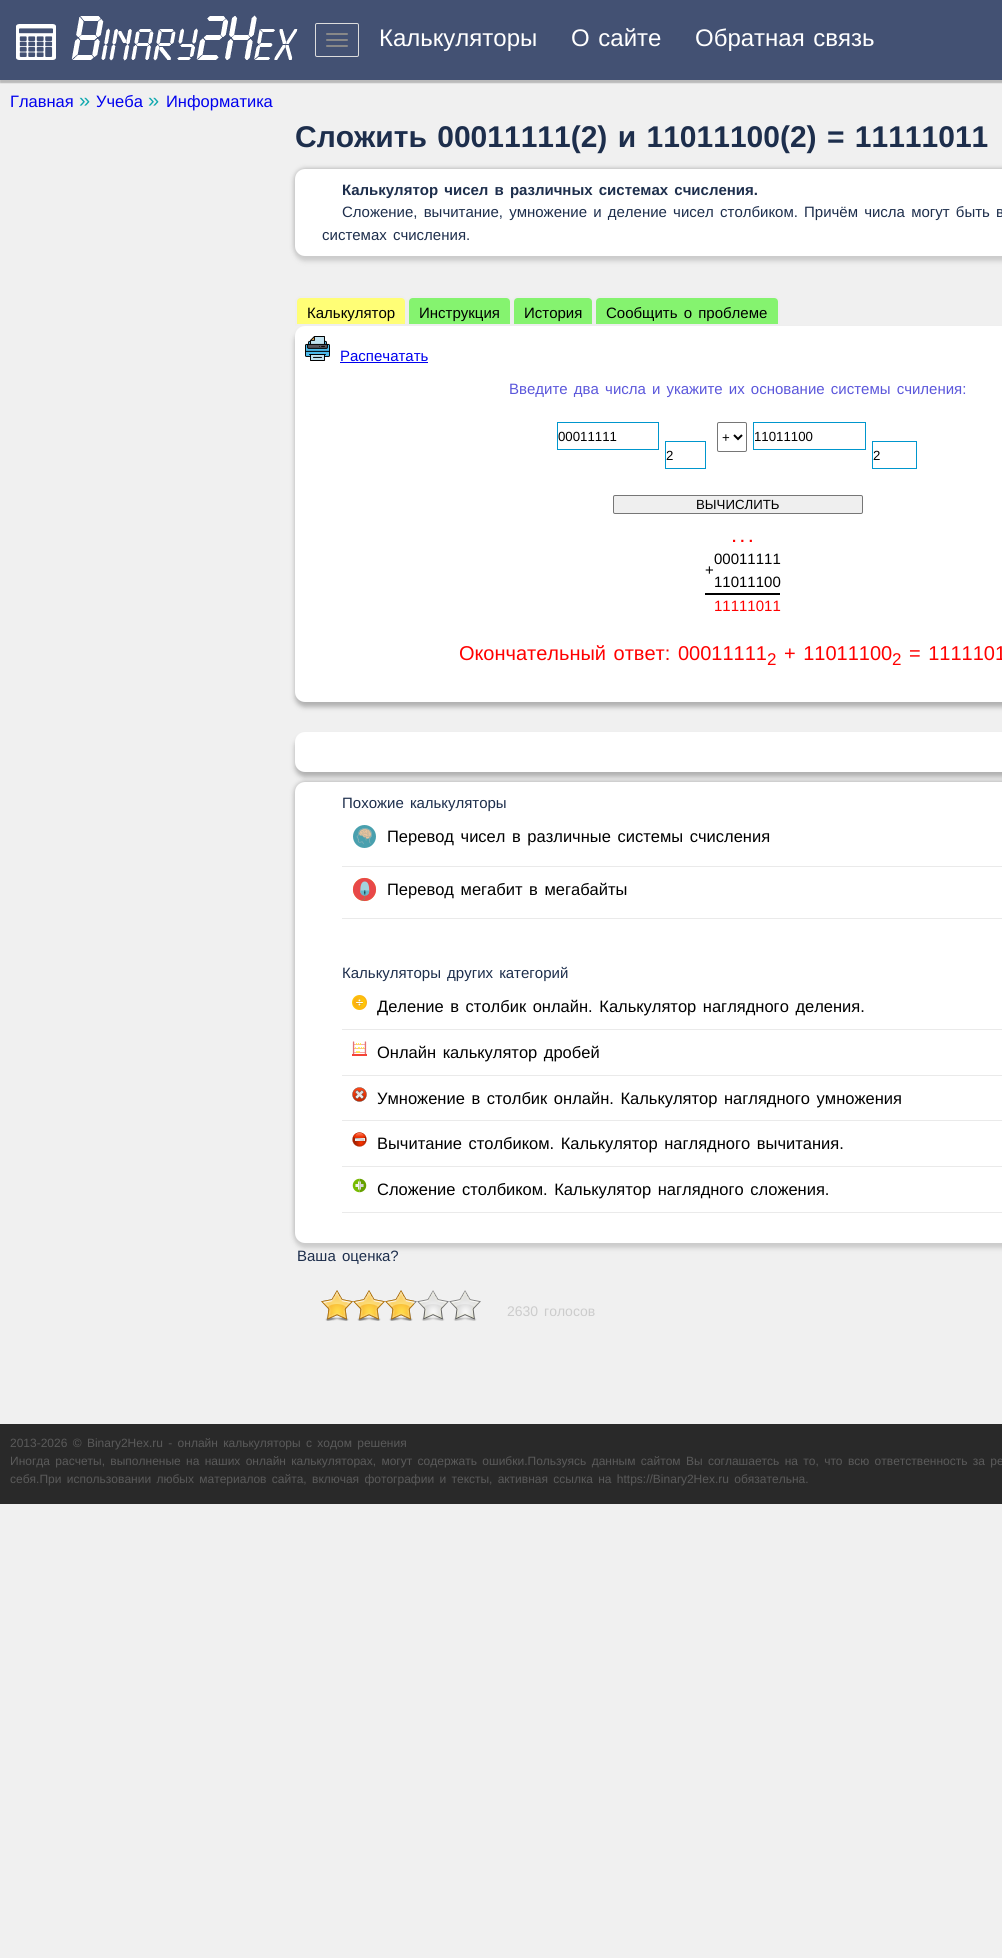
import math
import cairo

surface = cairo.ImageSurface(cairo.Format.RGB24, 1002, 1958)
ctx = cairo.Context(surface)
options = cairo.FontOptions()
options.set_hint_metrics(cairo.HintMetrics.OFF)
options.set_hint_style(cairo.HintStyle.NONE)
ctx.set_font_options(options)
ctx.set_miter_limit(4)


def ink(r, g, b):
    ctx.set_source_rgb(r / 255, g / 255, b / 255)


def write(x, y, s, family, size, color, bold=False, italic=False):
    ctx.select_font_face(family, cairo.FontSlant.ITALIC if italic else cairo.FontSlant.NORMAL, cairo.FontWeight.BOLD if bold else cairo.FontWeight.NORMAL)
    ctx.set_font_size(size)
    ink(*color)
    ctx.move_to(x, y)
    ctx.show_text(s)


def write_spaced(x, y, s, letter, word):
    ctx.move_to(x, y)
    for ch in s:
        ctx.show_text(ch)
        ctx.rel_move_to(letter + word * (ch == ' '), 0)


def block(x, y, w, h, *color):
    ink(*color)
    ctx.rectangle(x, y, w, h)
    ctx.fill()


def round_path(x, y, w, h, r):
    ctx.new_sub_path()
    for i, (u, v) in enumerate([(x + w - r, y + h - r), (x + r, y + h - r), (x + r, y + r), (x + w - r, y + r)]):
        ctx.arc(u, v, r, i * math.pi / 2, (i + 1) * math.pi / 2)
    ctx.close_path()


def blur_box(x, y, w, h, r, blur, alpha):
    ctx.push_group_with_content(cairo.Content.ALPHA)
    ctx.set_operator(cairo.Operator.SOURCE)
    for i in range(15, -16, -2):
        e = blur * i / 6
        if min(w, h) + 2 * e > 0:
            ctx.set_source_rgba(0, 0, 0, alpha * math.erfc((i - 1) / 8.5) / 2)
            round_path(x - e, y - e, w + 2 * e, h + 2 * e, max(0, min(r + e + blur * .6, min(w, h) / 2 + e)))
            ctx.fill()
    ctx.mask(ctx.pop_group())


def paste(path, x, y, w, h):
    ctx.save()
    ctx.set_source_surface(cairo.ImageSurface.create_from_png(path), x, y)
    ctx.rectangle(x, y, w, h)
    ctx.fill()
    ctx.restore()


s1 = dict(family="Liberation Sans", size=24, color=(255, 255, 255))
s2 = dict(family="Liberation Sans", size=16.5, color=(0, 0, 238))
s3 = dict(family="Liberation Sans", size=20, color=(15, 168, 174))
s4 = dict(family="Liberation Sans", size=15, color=(0, 0, 0))
s5 = dict(family="Liberation Sans", size=15, color=(0, 0, 238))
s6 = dict(family="Liberation Sans", size=13.25, color=(0, 0, 0))
s7 = dict(family="Liberation Sans", size=15, color=(255, 0, 0), bold=True)
s8 = dict(family="Liberation Sans", size=15, color=(255, 0, 0))
s9 = dict(family="Liberation Sans", size=20, color=(255, 0, 0))
s10 = dict(family="Liberation Sans", size=17, color=(255, 0, 0))

ink(240, 240, 240)
ctx.paint()
ink(186, 186, 186)
blur_box(0, 3, 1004, 80, 0, 0.5, 1)
block(0, 0, 1002, 80, 67, 81, 115)
paste("pic1.png", 16, 15, 282, 46)
round_path(315.5, 23.5, 43, 33, 1.5)
ink(221, 221, 221)
ctx.set_line_width(1)
ctx.stroke()
ink(136, 136, 136)
round_path(326, 33, 22, 2, 1)
ctx.fill()
round_path(326, 39, 22, 2, 1)
ctx.fill()
round_path(326, 45, 22, 2, 1)
ctx.fill()
write(379, 46, "Калькуляторы", **s1)
write_spaced(571, 46, "О сайте", 0, 2)
write_spaced(695, 46, "Обратная связь", 0, 2)
write(10, 107, "Главная", **s2)
write(79, 107, "»", **s3)
write(96, 107, "Учеба", **s2)
write(148, 107, "»", **s3)
write(166, 107, "Информатика", **s2)
ctx.select_font_face("Liberation Sans", cairo.FontSlant.NORMAL, cairo.FontWeight.BOLD)
ctx.set_font_size(30)
ink(29, 46, 76)
write_spaced(295, 147, "Сложить 00011111(2) и 11011100(2) = 11111011", 0, 2)
ink(165, 165, 165)
blur_box(295, 169, 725, 87, 10, 2.5, 1)
ink(204, 204, 204)
blur_box(295, 174, 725, 87, 10, 2.5, 1)
ink(255, 255, 255)
round_path(295, 169, 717, 87, 10)
ctx.fill()
ctx.set_font_size(15)
ink(29, 46, 76)
write_spaced(342, 195, "Калькулятор чисел в различных системах счисления.", 0, 2)
ctx.select_font_face("Liberation Sans")
write_spaced(342, 217, "Сложение, вычитание, умножение и деление чисел столбиком. Причём числа могут быть в", 0, 2)
write_spaced(322, 240, "системах счисления.", 0, 2)
ink(176, 176, 176)
blur_box(295, 331, 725, 376, 10, 2.5, 1)
ink(255, 254, 118)
ctx.new_path()
ctx.move_to(301, 297)
ctx.line_to(401, 297)
ctx.curve_to(404, 297, 406, 299, 406, 302)
ctx.line_to(406, 325)
ctx.line_to(296, 325)
ctx.line_to(296, 302)
ctx.curve_to(296, 299, 298, 297, 301, 297)
ctx.close_path()
ctx.fill_preserve()
ink(238, 238, 238)
ctx.set_line_width(2)
ctx.stroke()
write(307, 318, "Калькулятор", **s4)
ink(133, 243, 111)
ctx.new_path()
ctx.move_to(413, 297)
ctx.line_to(506, 297)
ctx.curve_to(509, 297, 511, 299, 511, 302)
ctx.line_to(511, 325)
ctx.line_to(408, 325)
ctx.line_to(408, 302)
ctx.curve_to(408, 299, 410, 297, 413, 297)
ctx.close_path()
ctx.fill_preserve()
ink(238, 238, 238)
ctx.stroke()
write(419, 318, "Инструкция", **s4)
ink(133, 243, 111)
ctx.new_path()
ctx.move_to(518, 297)
ctx.line_to(588, 297)
ctx.curve_to(591, 297, 593, 299, 593, 302)
ctx.line_to(593, 325)
ctx.line_to(513, 325)
ctx.line_to(513, 302)
ctx.curve_to(513, 299, 515, 297, 518, 297)
ctx.close_path()
ctx.fill_preserve()
ink(238, 238, 238)
ctx.stroke()
write(524, 318, "История", **s4)
ink(133, 243, 111)
ctx.new_path()
ctx.move_to(600, 297)
ctx.line_to(774, 297)
ctx.curve_to(777, 297, 779, 299, 779, 302)
ctx.line_to(779, 325)
ctx.line_to(595, 325)
ctx.line_to(595, 302)
ctx.curve_to(595, 299, 597, 297, 600, 297)
ctx.close_path()
ctx.fill_preserve()
ink(238, 238, 238)
ctx.stroke()
ink(0, 0, 0)
write_spaced(606, 318, "Сообщить о проблеме", 0, 2)
ink(255, 255, 255)
round_path(295, 326, 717, 376, 10)
ctx.fill()
paste("pic2.png", 305, 336, 25, 25)
write(340, 361, "Распечатать", **s5)
block(340, 362, 88, 1, 0, 0, 238)
ink(91, 87, 219)
write_spaced(509, 394, "Введите два числа и укажите их основание системы счиления:", 0, 2)
ctx.rectangle(557.5, 422.5, 101, 27)
ink(0, 150, 205)
ctx.set_line_width(1)
ctx.stroke()
write(558, 441, "00011111", **s6)
ctx.rectangle(665.5, 441.5, 40, 27)
ink(0, 150, 205)
ctx.stroke()
write(666, 460, "2", **s6)
round_path(717.5, 422.5, 29, 29, 1.5)
ink(118, 118, 118)
ctx.stroke()
ctx.new_path()
ctx.move_to(734, 435)
ctx.line_to(738, 439)
ctx.line_to(742, 435)
ink(0, 0, 0)
ctx.set_line_width(2)
ctx.stroke()
write(722, 442, "+", **s6)
ctx.rectangle(753.5, 422.5, 112, 27)
ink(0, 150, 205)
ctx.set_line_width(1)
ctx.stroke()
write(754, 441, "11011100", **s6)
ctx.rectangle(872.5, 441.5, 44, 27)
ink(0, 150, 205)
ctx.stroke()
write(873, 460, "2", **s6)
ink(239, 239, 239)
round_path(613.5, 495.5, 249, 18, 1.5)
ctx.fill_preserve()
ink(118, 118, 118)
ctx.stroke()
write(696, 509, "ВЫЧИСЛИТЬ", **s6)
write(732, 542, ". . .", **s7)
write(714, 564, "00011111", **s4)
write(705, 575, "+", **s4)
write(714, 587, "11011100", **s4)
block(705, 593, 75, 2, 0, 0, 0)
write(714, 611, "11111011", **s8)
ctx.set_font_size(20)
write_spaced(459, 660, "Окончательный ответ:", 0, 2)
write(678, 660, "00011111", **s9)
write(767, 665, "2", **s10)
ctx.set_font_size(20)
write_spaced(784, 660, "+ 11011100", 0, 2)
write(892, 665, "2", **s10)
ctx.set_font_size(20)
write_spaced(909, 660, "= 1111101", 0, 2)
ink(176, 176, 176)
blur_box(295, 737, 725, 40, 10, 2.5, 1)
ink(255, 255, 255)
round_path(295, 732, 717, 40, 10)
ctx.fill()
ink(165, 165, 165)
blur_box(295, 782, 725, 461, 10, 2.5, 1)
ink(204, 204, 204)
blur_box(295, 787, 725, 461, 10, 2.5, 1)
ink(255, 255, 255)
round_path(295, 782, 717, 461, 10)
ctx.fill()
ctx.set_font_size(15)
ink(29, 46, 76)
write_spaced(342, 808, "Похожие калькуляторы", 0, 2)
block(342, 866, 660, 1, 234, 234, 234)
paste("pic3.png", 353, 825, 23, 23)
ctx.set_font_size(16.5)
ink(0, 0, 0)
write_spaced(387, 842, "Перевод чисел в различные системы счисления", 0, 2)
block(342, 918, 660, 1, 234, 234, 234)
paste("pic4.png", 352, 877, 25, 25)
ink(0, 0, 0)
write_spaced(387, 895, "Перевод мегабит в мегабайты", 0, 2)
ctx.set_font_size(15)
ink(29, 46, 76)
write_spaced(342, 978, "Калькуляторы других категорий", 0, 2)
block(342, 1029, 660, 1, 234, 234, 234)
paste("pic5.png", 352, 995, 15, 15)
ctx.set_font_size(16.5)
ink(0, 0, 0)
write_spaced(377, 1012, "Деление в столбик онлайн. Калькулятор наглядного деления.", 0, 2)
block(342, 1075, 660, 1, 234, 234, 234)
paste("pic6.png", 352, 1041, 15, 15)
ink(0, 0, 0)
write_spaced(377, 1058, "Онлайн калькулятор дробей", 0, 2)
block(342, 1120, 660, 1, 234, 234, 234)
paste("pic7.png", 352, 1087, 15, 15)
ink(0, 0, 0)
write_spaced(377, 1104, "Умножение в столбик онлайн. Калькулятор наглядного умножения", 0, 2)
block(342, 1166, 660, 1, 234, 234, 234)
paste("pic8.png", 352, 1132, 15, 15)
ink(0, 0, 0)
write_spaced(377, 1149, "Вычитание столбиком. Калькулятор наглядного вычитания.", 0, 2)
block(342, 1212, 660, 1, 234, 234, 234)
paste("pic9.png", 352, 1178, 15, 15)
ink(0, 0, 0)
write_spaced(377, 1195, "Сложение столбиком. Калькулятор наглядного сложения.", 0, 2)
ctx.set_font_size(15)
ink(29, 46, 76)
write_spaced(297, 1261, "Ваша оценка?", 0, 2)
paste("pic10.png", 321, 1290, 160, 31)
paste("pic11.png", 321, 1290, 93, 31)
ctx.set_font_size(14)
ink(204, 204, 204)
write_spaced(507, 1316, "2630 голосов", 0, 2)
block(0, 1424, 1002, 80, 41, 41, 41)
ctx.set_font_size(12)
ink(90, 90, 90)
write_spaced(10, 1447, "2013-2026 © Binary2Hex.ru - онлайн калькуляторы с ходом решения", 0, 2)
write_spaced(10, 1465, "Иногда расчеты, выполненые на наших онлайн калькуляторах, могут содержать ошибки.Пользуясь данным сайтом Вы соглашаетсь на то, что всю ответственность за ре", 0, 2)
write_spaced(10, 1483, "себя.При использовании любых материалов сайта, включая фотографии и тексты, активная ссылка на https://Binary2Hex.ru обязательна.", 0, 2)
surface.write_to_png("screenshot.png")
